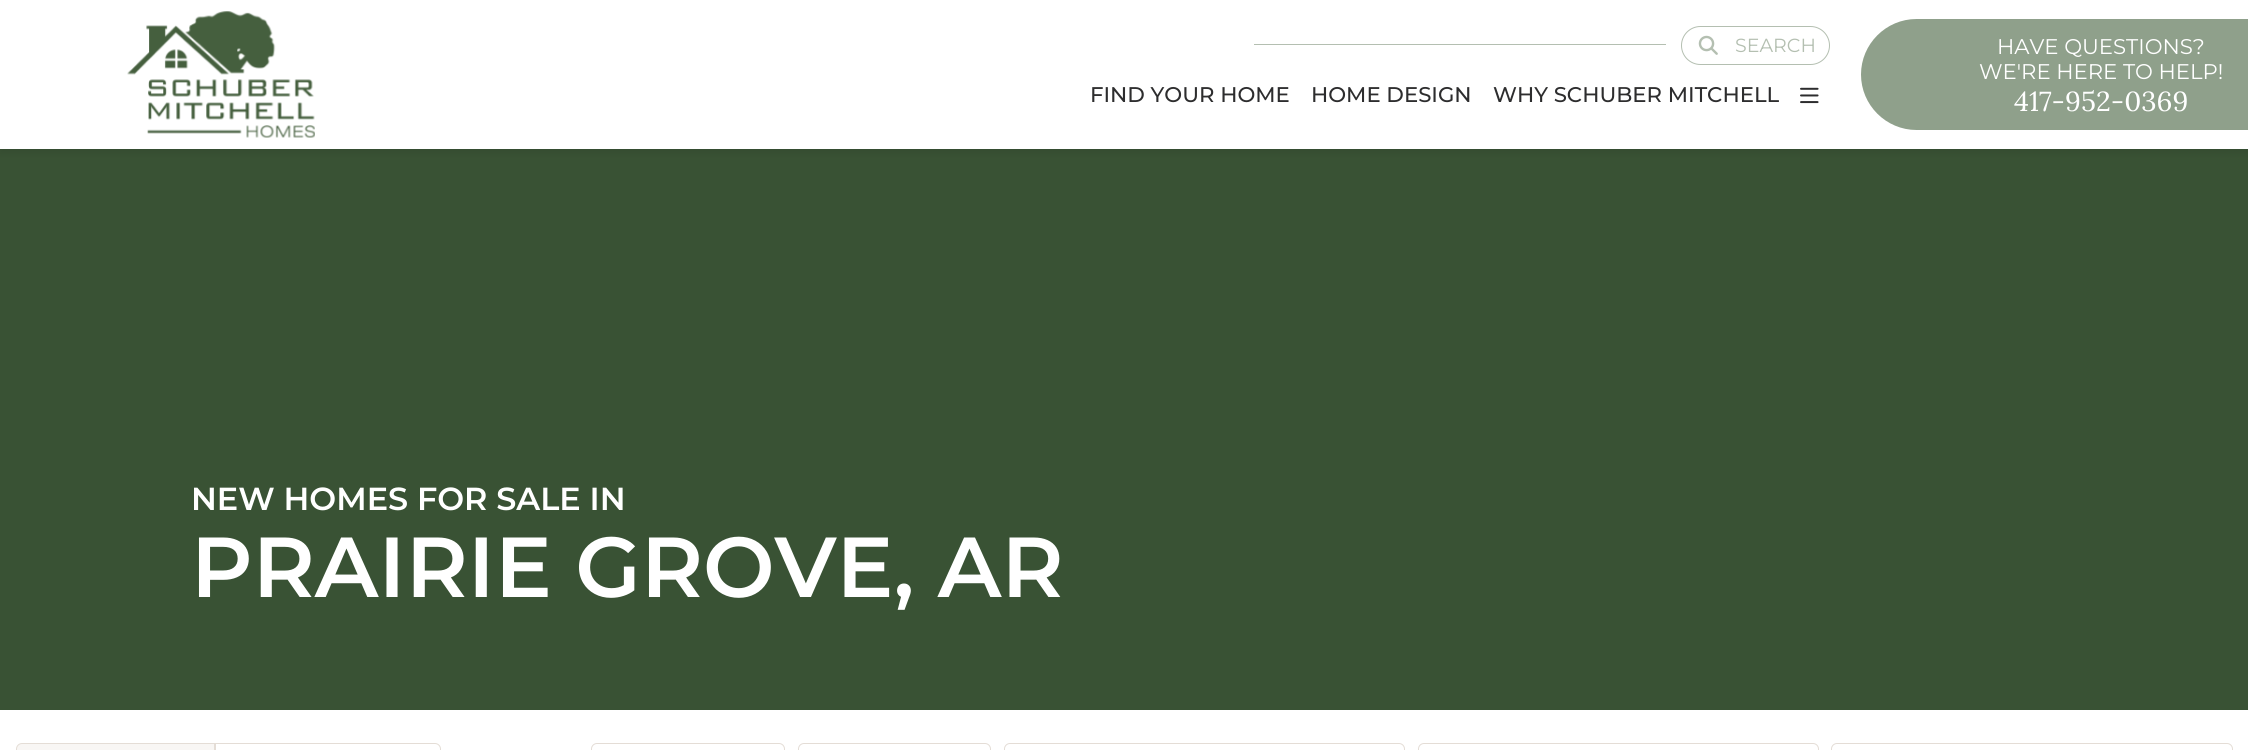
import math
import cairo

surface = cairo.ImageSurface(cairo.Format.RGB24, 2248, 750)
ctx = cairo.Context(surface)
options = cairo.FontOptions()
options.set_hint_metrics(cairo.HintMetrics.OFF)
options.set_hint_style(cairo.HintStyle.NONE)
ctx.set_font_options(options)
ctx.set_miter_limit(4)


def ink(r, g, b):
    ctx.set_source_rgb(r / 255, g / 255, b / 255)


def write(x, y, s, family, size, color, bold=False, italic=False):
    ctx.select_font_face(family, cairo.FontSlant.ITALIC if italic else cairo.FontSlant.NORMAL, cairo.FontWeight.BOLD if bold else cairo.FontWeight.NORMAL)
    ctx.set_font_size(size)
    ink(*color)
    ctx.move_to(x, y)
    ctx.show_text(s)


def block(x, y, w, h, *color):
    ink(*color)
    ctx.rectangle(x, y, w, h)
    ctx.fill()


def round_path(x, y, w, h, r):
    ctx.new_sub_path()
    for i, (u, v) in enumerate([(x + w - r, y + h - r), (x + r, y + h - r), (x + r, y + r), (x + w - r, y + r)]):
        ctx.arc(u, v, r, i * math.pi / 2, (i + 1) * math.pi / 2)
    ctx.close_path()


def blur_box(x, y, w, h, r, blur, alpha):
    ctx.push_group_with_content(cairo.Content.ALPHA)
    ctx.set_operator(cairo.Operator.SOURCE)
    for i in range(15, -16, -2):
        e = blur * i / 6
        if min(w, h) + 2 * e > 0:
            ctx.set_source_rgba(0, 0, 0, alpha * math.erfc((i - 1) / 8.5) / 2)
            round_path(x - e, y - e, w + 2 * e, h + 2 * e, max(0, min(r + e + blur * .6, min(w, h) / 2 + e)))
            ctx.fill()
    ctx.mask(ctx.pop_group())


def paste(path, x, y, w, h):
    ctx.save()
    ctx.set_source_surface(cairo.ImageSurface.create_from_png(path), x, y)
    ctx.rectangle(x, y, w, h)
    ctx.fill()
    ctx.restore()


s1 = dict(family="Montserrat", size=19, color=(180, 191, 177))
s2 = dict(family="Montserrat Medium", size=21.25, color=(45, 45, 46))
s3 = dict(family="Montserrat", size=21.25, color=(255, 255, 255))
s4 = dict(family="Lora", size=27.5, color=(255, 255, 255))
s5 = dict(family="Montserrat SemiBold", size=31.9, color=(255, 255, 255))
s6 = dict(family="Montserrat SemiBold", size=85, color=(255, 255, 255))

ink(255, 255, 255)
ctx.paint()
block(0, 149, 2248, 561, 57, 82, 52)
ink(0, 0, 0)
blur_box(0, 4, 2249, 149, 0, 4, 0.08)
block(0, 0, 2248, 149, 255, 255, 255)
paste("pic1.png", 127, 11, 188, 127)
round_path(1681.5, 26.5, 148, 38, 19)
ink(180, 191, 177)
ctx.set_line_width(1)
ctx.stroke()
block(1254, 44, 412, 1, 180, 191, 177)
paste("pic2.png", 1698, 35, 20, 20)
write(1735, 52, "SEARCH", **s1)
write(1090, 102, "FIND YOUR HOME", **s2)
write(1311, 102, "HOME DESIGN", **s2)
write(1493, 102, "WHY SCHUBER MITCHELL", **s2)
paste("pic3.png", 1800, 87, 19, 17)
ink(143, 160, 139)
ctx.new_path()
ctx.move_to(1916.5, 19)
ctx.line_to(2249, 19)
ctx.line_to(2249, 130)
ctx.line_to(1916.5, 130)
ctx.curve_to(1886, 130, 1861, 105, 1861, 74.5)
ctx.curve_to(1861, 44, 1886, 19, 1916.5, 19)
ctx.close_path()
ctx.fill()
write(1997, 54, "HAVE QUESTIONS?", **s3)
write(1979, 79, "WE'RE HERE TO HELP!", **s3)
write(2014, 111, "417-952-0369", **s4)
write(191, 510, "NEW HOMES FOR SALE IN", **s5)
write(191, 597, "PRAIRIE GROVE, AR", **s6)
ink(248, 246, 244)
ctx.new_path()
ctx.move_to(22, 743.5)
ctx.line_to(214.5, 743.5)
ctx.line_to(214.5, 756.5)
ctx.line_to(22, 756.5)
ctx.curve_to(19, 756.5, 16.5, 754, 16.5, 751)
ctx.line_to(16.5, 749)
ctx.curve_to(16.5, 746, 19, 743.5, 22, 743.5)
ctx.close_path()
ctx.fill_preserve()
ink(228, 221, 214)
ctx.stroke()
ctx.new_path()
ctx.move_to(215.5, 743.5)
ctx.line_to(435, 743.5)
ctx.curve_to(438, 743.5, 440.5, 746, 440.5, 749)
ctx.line_to(440.5, 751)
ctx.curve_to(440.5, 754, 438, 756.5, 435, 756.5)
ctx.line_to(215.5, 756.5)
ctx.close_path()
ctx.stroke()
round_path(591.5, 743.5, 193, 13, 5.5)
ctx.stroke()
round_path(798.5, 743.5, 192, 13, 5.5)
ctx.stroke()
round_path(1004.5, 743.5, 400, 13, 5.5)
ctx.stroke()
round_path(1418.5, 743.5, 400, 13, 5.5)
ctx.stroke()
round_path(1831.5, 743.5, 401, 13, 5.5)
ctx.stroke()
surface.write_to_png("screenshot.png")
